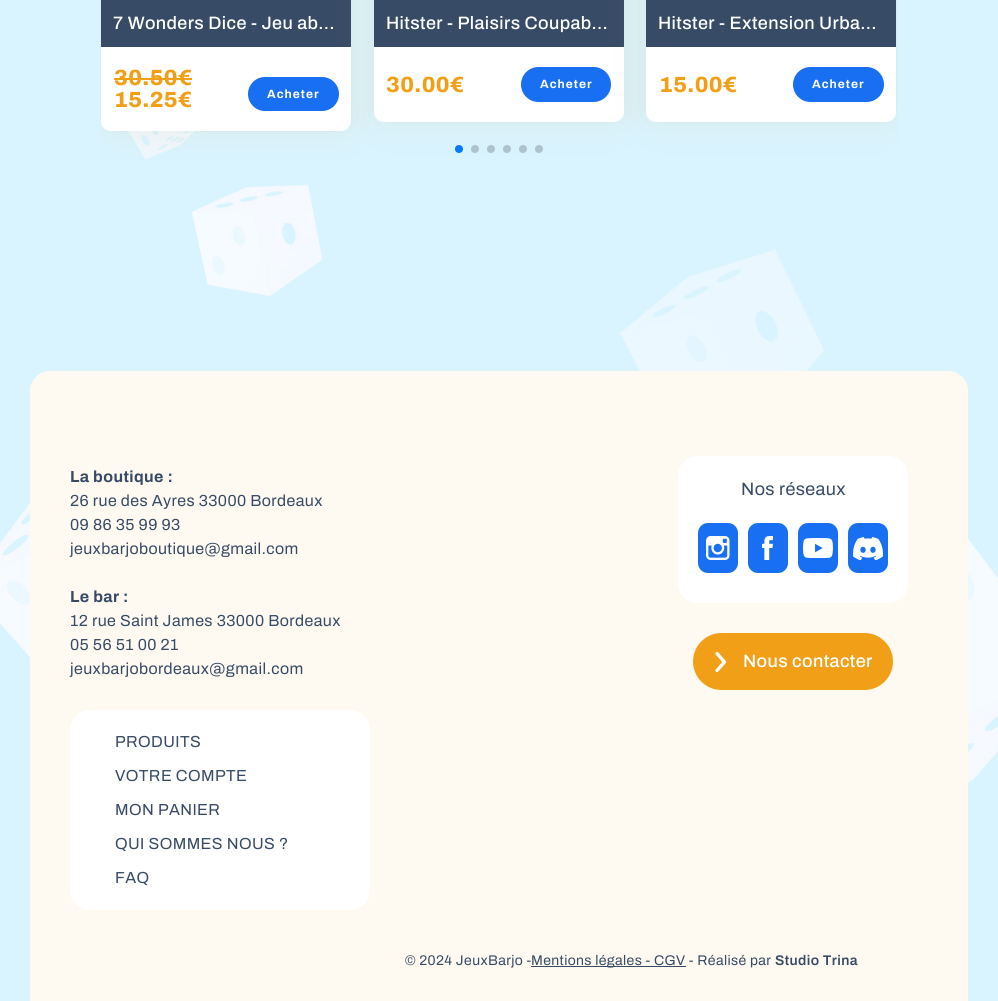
import math
import cairo

surface = cairo.ImageSurface(cairo.Format.RGB24, 998, 1001)
ctx = cairo.Context(surface)
options = cairo.FontOptions()
options.set_hint_metrics(cairo.HintMetrics.OFF)
options.set_hint_style(cairo.HintStyle.NONE)
ctx.set_font_options(options)
ctx.set_miter_limit(4)


def ink(r, g, b):
    ctx.set_source_rgb(r / 255, g / 255, b / 255)


def write_spaced(x, y, s, letter, word):
    ctx.move_to(x, y)
    for ch in s:
        ctx.show_text(ch)
        ctx.rel_move_to(letter + word * (ch == ' '), 0)


def block(x, y, w, h, *color):
    ink(*color)
    ctx.rectangle(x, y, w, h)
    ctx.fill()


def round_path(x, y, w, h, r):
    ctx.new_sub_path()
    for i, (u, v) in enumerate([(x + w - r, y + h - r), (x + r, y + h - r), (x + r, y + r), (x + w - r, y + r)]):
        ctx.arc(u, v, r, i * math.pi / 2, (i + 1) * math.pi / 2)
    ctx.close_path()


def blur_box(x, y, w, h, r, blur, alpha):
    ctx.push_group_with_content(cairo.Content.ALPHA)
    ctx.set_operator(cairo.Operator.SOURCE)
    for i in range(15, -16, -2):
        e = blur * i / 6
        if min(w, h) + 2 * e > 0:
            ctx.set_source_rgba(0, 0, 0, alpha * math.erfc((i - 1) / 8.5) / 2)
            round_path(x - e, y - e, w + 2 * e, h + 2 * e, max(0, min(r + e + blur * .6, min(w, h) / 2 + e)))
            ctx.fill()
    ctx.mask(ctx.pop_group())


def paste(path, x, y, w, h):
    ctx.save()
    ctx.set_source_surface(cairo.ImageSurface.create_from_png(path), x, y)
    ctx.rectangle(x, y, w, h)
    ctx.fill()
    ctx.restore()


ink(255, 255, 255)
ctx.paint()
paste("pic1.png", 0, 0, 998, 1001)
ctx.save()
ctx.rectangle(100, 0, 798, 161)
ctx.clip()
ink(217, 181, 130)
blur_box(101, -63, 250, 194, 10, 17.5, 0.2)
ctx.restore()
ink(255, 255, 255)
round_path(101, -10, 250, 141, 10)
ctx.fill()
block(101, 0, 250, 47, 56, 75, 102)
ctx.select_font_face("Archivo Medium")
ctx.set_font_size(18)
ink(255, 255, 255)
write_spaced(113, 29, "7 Wonders Dice - Jeu ab…", 0.4, 0)
ctx.select_font_face("Archivo ExtraBold")
ctx.set_font_size(22)
ink(242, 159, 24)
write_spaced(114, 85, "30.50€", 0.4, 0)
block(114, 78, 78, 2, 242, 159, 24)
write_spaced(114, 107, "15.25€", 0.4, 0)
ink(24, 111, 242)
round_path(248, 77, 91, 34, 17)
ctx.fill()
ctx.select_font_face("Archivo", cairo.FontSlant.NORMAL, cairo.FontWeight.BOLD)
ctx.set_font_size(12)
ink(255, 255, 255)
write_spaced(267, 98, "Acheter", 1, 0)
ink(217, 181, 130)
blur_box(374, -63, 250, 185, 10, 17.5, 0.2)
ink(255, 255, 255)
round_path(374, -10, 250, 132, 10)
ctx.fill()
block(374, 0, 250, 47, 56, 75, 102)
ctx.select_font_face("Archivo Medium")
ctx.set_font_size(18)
ink(255, 255, 255)
write_spaced(386, 29, "Hitster - Plaisirs Coupab…", 0.4, 0)
ctx.select_font_face("Archivo ExtraBold")
ctx.set_font_size(22)
ink(242, 159, 24)
write_spaced(386, 92, "30.00€", 0.4, 0)
ink(24, 111, 242)
round_path(521, 67, 90, 35, 17.5)
ctx.fill()
ctx.select_font_face("Archivo", cairo.FontSlant.NORMAL, cairo.FontWeight.BOLD)
ctx.set_font_size(12)
ink(255, 255, 255)
write_spaced(540, 88, "Acheter", 1, 0)
ctx.save()
ctx.rectangle(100, 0, 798, 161)
ctx.clip()
ink(217, 181, 130)
blur_box(646, -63, 250, 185, 10, 17.5, 0.2)
ctx.restore()
round_path(646, -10, 250, 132, 10)
ctx.fill()
block(646, 0, 250, 47, 56, 75, 102)
ctx.select_font_face("Archivo Medium")
ctx.set_font_size(18)
ink(255, 255, 255)
write_spaced(658, 29, "Hitster - Extension Urba…", 0.4, 0)
ctx.select_font_face("Archivo ExtraBold")
ctx.set_font_size(22)
ink(242, 159, 24)
write_spaced(659, 92, "15.00€", 0.4, 0)
ink(24, 111, 242)
round_path(793, 67, 91, 35, 17.5)
ctx.fill()
ctx.select_font_face("Archivo", cairo.FontSlant.NORMAL, cairo.FontWeight.BOLD)
ctx.set_font_size(12)
ink(255, 255, 255)
write_spaced(812, 88, "Acheter", 1, 0)
ink(0, 122, 255)
ctx.new_path()
ctx.arc(459, 149, 4, 0, 2 * math.pi)
ctx.fill()
ink(174, 195, 203)
ctx.arc(475, 149, 4, 0, 2 * math.pi)
ctx.fill()
ctx.arc(491, 149, 4, 0, 2 * math.pi)
ctx.fill()
ctx.arc(507, 149, 4, 0, 2 * math.pi)
ctx.fill()
ctx.arc(523, 149, 4, 0, 2 * math.pi)
ctx.fill()
ctx.arc(539, 149, 4, 0, 2 * math.pi)
ctx.fill()
ink(255, 250, 241)
ctx.new_path()
ctx.move_to(50, 371)
ctx.line_to(948, 371)
ctx.curve_to(959, 371, 968, 380, 968, 391)
ctx.line_to(968, 1001)
ctx.line_to(30, 1001)
ctx.line_to(30, 391)
ctx.curve_to(30, 380, 39, 371, 50, 371)
ctx.close_path()
ctx.fill()
ctx.set_font_size(16)
ink(56, 75, 102)
write_spaced(70, 482, "La boutique :", 0.4, 0)
ctx.select_font_face("Archivo")
write_spaced(70, 506, "26 rue des Ayres 33000 Bordeaux", 0.4, 0)
write_spaced(70, 530, "09 86 35 99 93", 0.4, 0)
write_spaced(70, 554, "jeuxbarjoboutique@gmail.com", 0.4, 0)
ctx.select_font_face("Archivo", cairo.FontSlant.NORMAL, cairo.FontWeight.BOLD)
write_spaced(70, 602, "Le bar :", 0.4, 0)
ctx.select_font_face("Archivo")
write_spaced(70, 626, "12 rue Saint James 33000 Bordeaux", 0.4, 0)
write_spaced(70, 650, "05 56 51 00 21", 0.4, 0)
write_spaced(70, 674, "jeuxbarjobordeaux@gmail.com", 0.4, 0)
ink(255, 255, 255)
round_path(678, 456, 230, 147, 20)
ctx.fill()
ctx.set_font_size(18)
ink(56, 75, 102)
write_spaced(741, 495, "Nos réseaux", 0.4, 0)
ink(24, 111, 242)
round_path(698, 523, 40, 50, 10)
ctx.fill()
paste("pic2.png", 706, 536, 24, 24)
round_path(748, 523, 40, 50, 10)
ctx.fill()
paste("pic3.png", 762, 536, 11, 24)
round_path(798, 523, 40, 50, 10)
ctx.fill()
paste("pic4.png", 803, 538, 30, 20)
round_path(848, 523, 40, 50, 10)
ctx.fill()
paste("pic5.png", 853, 537, 30, 23)
ink(242, 159, 24)
round_path(693, 633, 200, 57, 28.5)
ctx.fill()
ctx.new_path()
ctx.move_to(717, 653.5)
ctx.line_to(724.5, 662)
ctx.line_to(717, 670.5)
ink(255, 255, 255)
ctx.set_line_width(3.3)
ctx.set_line_cap(cairo.LineCap.ROUND)
ctx.set_line_join(cairo.LineJoin.ROUND)
ctx.stroke()
ctx.select_font_face("Archivo Medium")
write_spaced(743, 667, "Nous contacter", 0.4, 0)
round_path(70, 710, 300, 200, 20)
ctx.fill()
ctx.select_font_face("Archivo")
ctx.set_font_size(16)
ink(56, 75, 102)
write_spaced(115, 747, "PRODUITS", 0.4, 0)
write_spaced(115, 781, "VOTRE COMPTE", 0.4, 0)
write_spaced(115, 815, "MON PANIER", 0.4, 0)
write_spaced(115, 849, "QUI SOMMES NOUS ?", 0.4, 0)
write_spaced(115, 883, "FAQ", 0.4, 0)
ctx.set_font_size(14)
write_spaced(405, 965, "© 2024 JeuxBarjo -", 0.4, 0)
block(531, 966, 155, 1, 56, 75, 102)
write_spaced(531, 965, "Mentions légales - CGV - Réalisé par", 0.4, 0)
ctx.select_font_face("Archivo SemiBold")
write_spaced(775, 965, "Studio Trina", 0.4, 0)
surface.write_to_png("screenshot.png")
